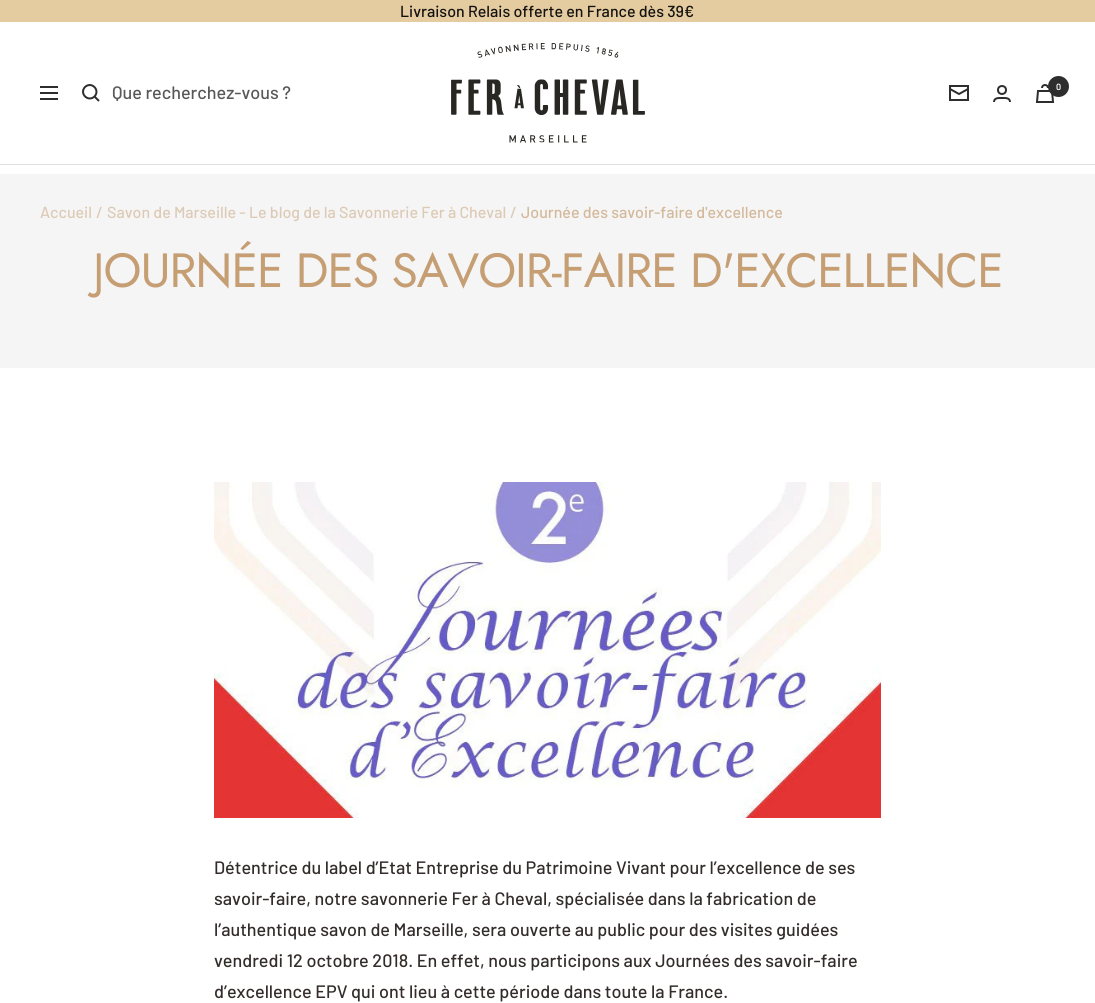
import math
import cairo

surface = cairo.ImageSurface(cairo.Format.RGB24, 1095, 1003)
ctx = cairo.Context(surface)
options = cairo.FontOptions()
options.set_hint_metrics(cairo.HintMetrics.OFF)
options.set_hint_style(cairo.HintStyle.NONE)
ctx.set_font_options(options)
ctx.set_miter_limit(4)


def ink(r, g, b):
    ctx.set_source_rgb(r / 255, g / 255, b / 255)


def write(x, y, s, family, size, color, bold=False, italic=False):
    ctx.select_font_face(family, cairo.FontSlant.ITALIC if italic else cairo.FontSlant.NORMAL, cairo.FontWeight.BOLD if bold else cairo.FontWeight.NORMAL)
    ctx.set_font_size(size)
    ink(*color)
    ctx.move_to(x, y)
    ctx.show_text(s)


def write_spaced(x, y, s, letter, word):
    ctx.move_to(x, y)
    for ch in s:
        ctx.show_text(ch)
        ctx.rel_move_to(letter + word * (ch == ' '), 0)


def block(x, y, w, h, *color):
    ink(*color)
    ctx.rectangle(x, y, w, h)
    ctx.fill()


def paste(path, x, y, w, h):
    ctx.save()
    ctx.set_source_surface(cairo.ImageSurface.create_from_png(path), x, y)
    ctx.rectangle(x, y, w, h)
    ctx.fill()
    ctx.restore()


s1 = dict(family="Barlow Medium", size=16, color=(20, 18, 16))
s2 = dict(family="Barlow Medium", size=18, color=(88, 88, 88))
s3 = dict(family="Barlow SemiBold", size=9, color=(255, 255, 255))
s4 = dict(family="Barlow Medium", size=16, color=(221, 202, 181))
s5 = dict(family="Barlow Medium", size=16, color=(211, 184, 154))
s6 = dict(family="Barlow Medium", size=18, color=(51, 44, 43))

ink(255, 255, 255)
ctx.paint()
block(0, 0, 1095, 22, 228, 204, 160)
write(400, 17, "Livraison Relais offerte en France dès 39€", **s1)
block(0, 164, 1095, 1, 224, 223, 223)
ctx.new_path()
ctx.move_to(94.5, 96.5)
ctx.curve_to(100.5, 90, 91.5, 81, 85, 87)
ctx.curve_to(79, 93.5, 88, 102.5, 94.5, 96.5)
ctx.close_path()
ctx.move_to(94.5, 96.5)
ctx.line_to(99, 101)
ctx.move_to(40, 87)
ctx.line_to(58, 87)
ctx.move_to(40, 99)
ctx.line_to(58, 99)
ctx.close_path()
ctx.move_to(40, 93)
ctx.line_to(58, 93)
ctx.close_path()
ink(46, 46, 46)
ctx.stroke()
write(112, 99, "Que recherchez-vous ?", **s2)
paste("pic1.png", 451, 43, 194, 100)
ctx.new_path()
ctx.move_to(968, 89)
ctx.line_to(959, 94)
ctx.line_to(950, 89)
ctx.move_to(950, 86)
ctx.line_to(968, 86)
ctx.line_to(968, 100)
ctx.line_to(950, 100)
ctx.close_path()
ink(46, 46, 46)
ctx.stroke()
ctx.arc(1002, 90, 4, 0, 2 * math.pi)
ctx.stroke()
ctx.new_path()
ctx.move_to(994, 102)
ctx.curve_to(994, 97.5, 999, 98, 1002, 98)
ctx.curve_to(1005, 98, 1010, 97.5, 1010, 102)
ctx.move_to(1038, 91)
ctx.line_to(1052, 91)
ctx.line_to(1053, 102)
ctx.line_to(1037, 102)
ctx.close_path()
ctx.move_to(1048, 88)
ctx.curve_to(1048, 84, 1042, 84, 1042, 88)
ctx.stroke()
ctx.arc(1058.5, 86.5, 10.5, 0, 2 * math.pi)
ctx.fill()
write(1056, 90, "0", **s3)
block(0, 174, 1095, 194, 245, 245, 245)
write(40, 218, "Accueil", **s4)
write(96, 218, "/", **s4)
write(107, 218, "Savon de Marseille - Le blog de la Savonnerie Fer à Cheval", **s4)
write(510, 218, "/", **s4)
write(521, 218, "Journée des savoir-faire d'excellence", **s5)
ctx.select_font_face("Jost")
ctx.set_font_size(48)
ink(197, 158, 115)
write_spaced(93, 287, "JOURNÉE DES SAVOIR-FAIRE D'EXCELLENCE", -1, 0)
paste("pic2.png", 214, 482, 667, 336)
write(214, 874, "Détentrice du label d’Etat Entreprise du Patrimoine Vivant pour l’excellence de ses", **s6)
write(214, 905, "savoir-faire, notre savonnerie Fer à Cheval, spécialisée dans la fabrication de", **s6)
write(214, 936, "l’authentique savon de Marseille, sera ouverte au public pour des visites guidées", **s6)
write(214, 967, "vendredi 12 octobre 2018. En effet, nous participons aux Journées des savoir-faire", **s6)
write(214, 998, "d’excellence EPV qui ont lieu à cette période dans toute la France.", **s6)
surface.write_to_png("screenshot.png")
